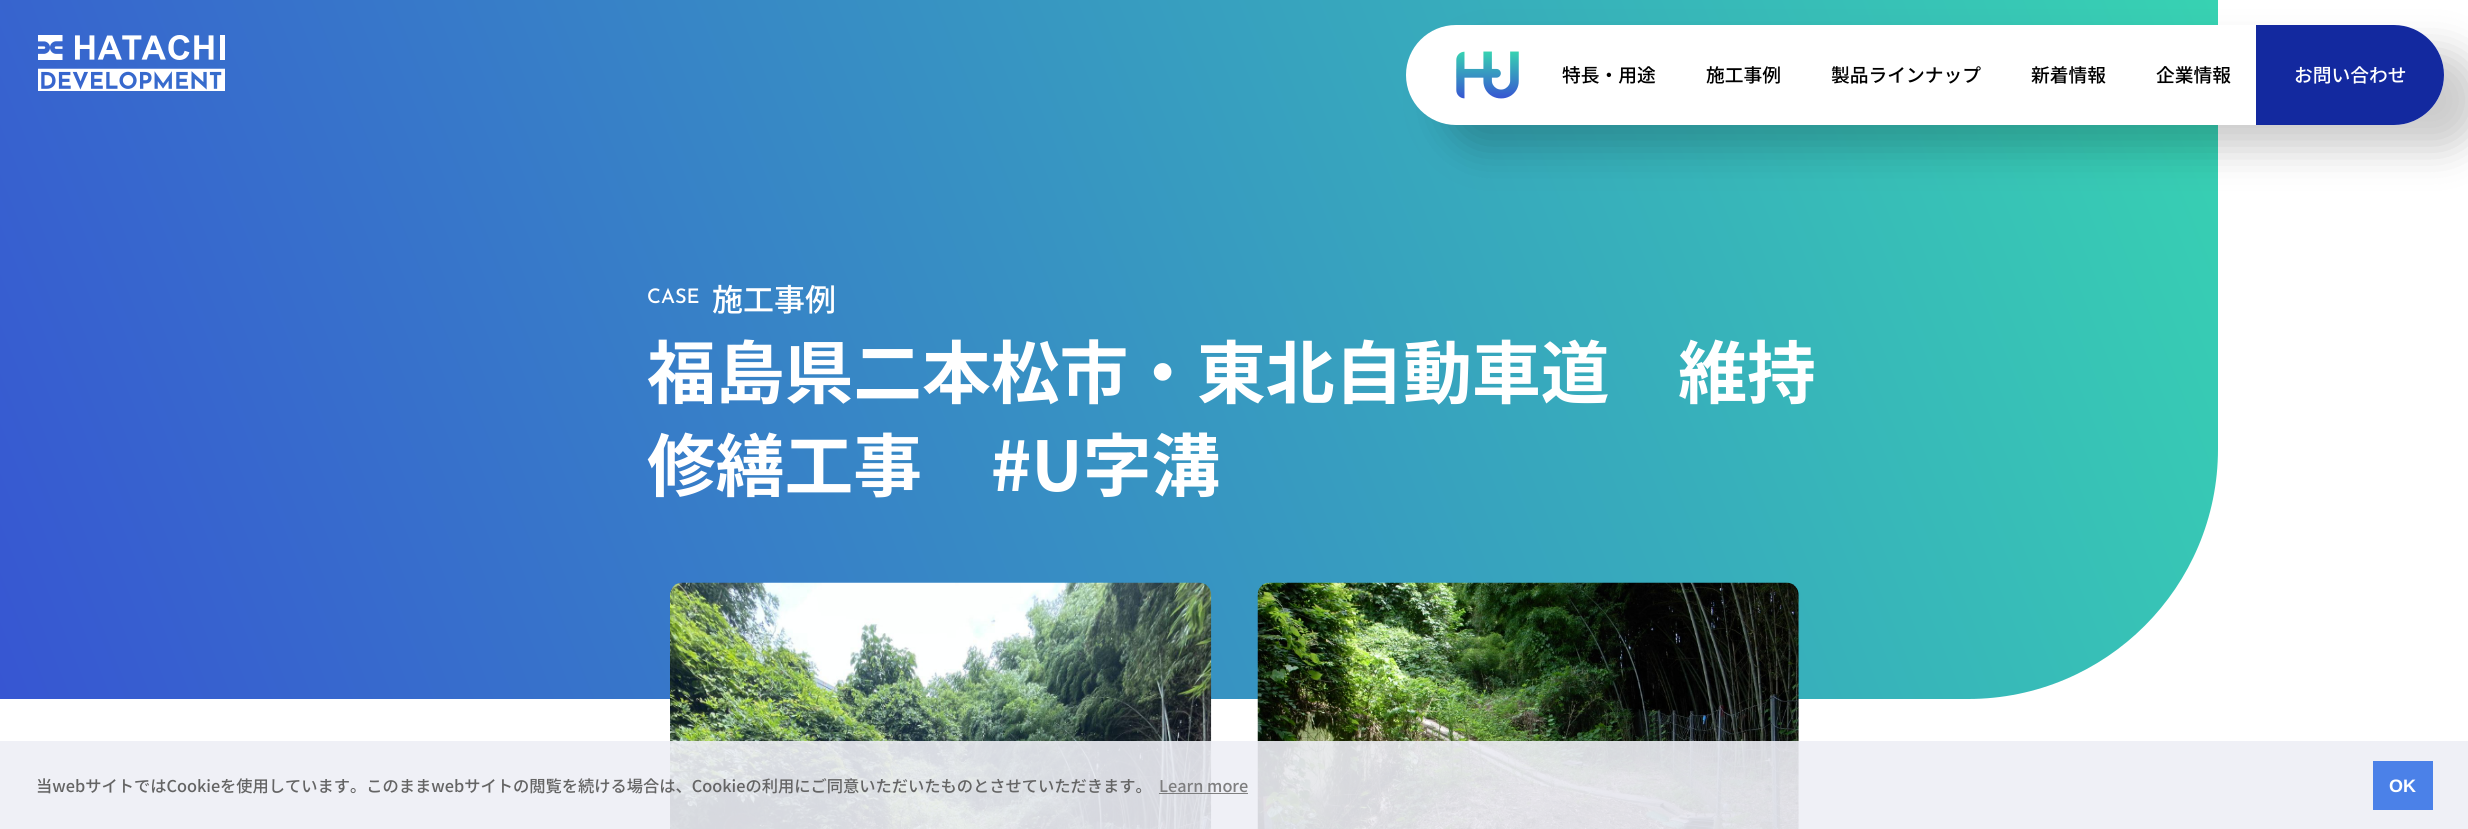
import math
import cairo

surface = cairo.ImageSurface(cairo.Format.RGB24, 2468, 829)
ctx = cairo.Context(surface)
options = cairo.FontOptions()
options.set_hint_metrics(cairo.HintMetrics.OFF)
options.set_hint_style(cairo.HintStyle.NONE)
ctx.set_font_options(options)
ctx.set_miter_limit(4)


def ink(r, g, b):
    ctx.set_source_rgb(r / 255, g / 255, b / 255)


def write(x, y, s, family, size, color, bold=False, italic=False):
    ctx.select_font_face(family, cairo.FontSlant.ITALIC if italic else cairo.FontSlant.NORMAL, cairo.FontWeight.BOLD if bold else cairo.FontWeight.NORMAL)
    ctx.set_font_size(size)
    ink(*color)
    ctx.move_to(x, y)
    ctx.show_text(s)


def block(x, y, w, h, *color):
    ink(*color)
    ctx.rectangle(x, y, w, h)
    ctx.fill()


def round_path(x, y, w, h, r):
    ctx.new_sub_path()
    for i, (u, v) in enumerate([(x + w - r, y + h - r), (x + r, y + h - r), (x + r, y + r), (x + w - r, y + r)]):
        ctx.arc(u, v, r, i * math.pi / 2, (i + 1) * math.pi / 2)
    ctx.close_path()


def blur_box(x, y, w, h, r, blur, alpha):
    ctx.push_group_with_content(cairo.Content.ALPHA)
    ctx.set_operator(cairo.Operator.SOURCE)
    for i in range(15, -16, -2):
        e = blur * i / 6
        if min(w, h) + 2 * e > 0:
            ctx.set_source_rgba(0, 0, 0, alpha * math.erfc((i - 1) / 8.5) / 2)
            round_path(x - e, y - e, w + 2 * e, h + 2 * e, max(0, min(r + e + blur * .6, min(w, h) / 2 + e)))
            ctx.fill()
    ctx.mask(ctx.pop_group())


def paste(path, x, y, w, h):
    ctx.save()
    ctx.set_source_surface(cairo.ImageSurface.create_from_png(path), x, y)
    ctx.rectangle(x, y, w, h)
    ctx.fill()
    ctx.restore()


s1 = dict(family="Noto Sans JP Medium", size=18.75, color=(0, 0, 0))
s2 = dict(family="Noto Sans JP Medium", size=18.75, color=(255, 255, 255))
s3 = dict(family="Josefin Sans Medium", size=20, color=(255, 255, 255))
s4 = dict(family="Noto Sans JP Medium", size=31, color=(255, 255, 255))
s5 = dict(family="Noto Sans JP", size=68.75, color=(255, 255, 255), bold=True)
s6 = dict(family="Noto Sans JP Medium", size=16.25, color=(100, 100, 100))
s7 = dict(family="Noto Sans JP Medium", size=16.25, color=(126, 126, 127))
s8 = dict(family="Liberation Sans", size=18, color=(255, 255, 255), bold=True)

ink(255, 255, 255)
ctx.paint()
gradient = cairo.LinearGradient(2183, -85, 34, 784)
gradient.add_color_stop_rgba(0, 0.216, 0.824, 0.698, 1)
gradient.add_color_stop_rgba(1, 0.216, 0.337, 0.824, 1)
ctx.set_source(gradient)
ctx.new_path()
ctx.move_to(0, 0)
ctx.line_to(2218, 0)
ctx.line_to(2218, 449)
ctx.curve_to(2218, 587, 2106, 699, 1968, 699)
ctx.line_to(0, 699)
ctx.close_path()
ctx.fill()
paste("pic1.png", 38, 35, 187, 56)
ink(0, 0, 0)
blur_box(1444, 50, 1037, 100, 50, 19, 0.2)
ink(255, 255, 255)
round_path(1406, 25, 1038, 100, 50)
ctx.fill()
paste("pic2.png", 1456, 51, 63, 48)
write(1562, 82, "特長・用途", **s1)
write(1706, 82, "施工事例", **s1)
write(1831, 82, "製品ラインナップ", **s1)
write(2031, 82, "新着情報", **s1)
write(2156, 82, "企業情報", **s1)
ink(19, 41, 159)
ctx.new_path()
ctx.move_to(2256, 25)
ctx.line_to(2394, 25)
ctx.curve_to(2421.5, 25, 2444, 47.5, 2444, 75)
ctx.curve_to(2444, 102.5, 2421.5, 125, 2394, 125)
ctx.line_to(2256, 125)
ctx.close_path()
ctx.fill()
write(2294, 82, "お問い合わせ", **s2)
write(647, 303, "CASE", **s3)
write(712, 311, "施工事例", **s4)
write(647, 398, "福島県二本松市・東北自動車道　維持", **s5)
write(647, 491, "修繕工事　#U字溝", **s5)
paste("pic3.png", 670, 582, 542, 247)
paste("pic4.png", 1257, 582, 542, 247)
ctx.set_source_rgba(0.929, 0.937, 0.961, 0.9)
ctx.rectangle(0, 741, 2468, 88)
ctx.fill()
write(36, 792, "当webサイトではCookieを使用しています。このままwebサイトの閲覧を続ける場合は、Cookieの利用にご同意いただいたものとさせていただきます。", **s6)
write(1159, 792, "Learn more", **s7)
ctx.set_source_rgba(0.392, 0.392, 0.392, 0.8)
ctx.rectangle(1159, 793, 89, 1)
ctx.fill()
block(2373, 761, 60, 49, 75, 129, 232)
write(2389, 792, "OK", **s8)
surface.write_to_png("screenshot.png")
